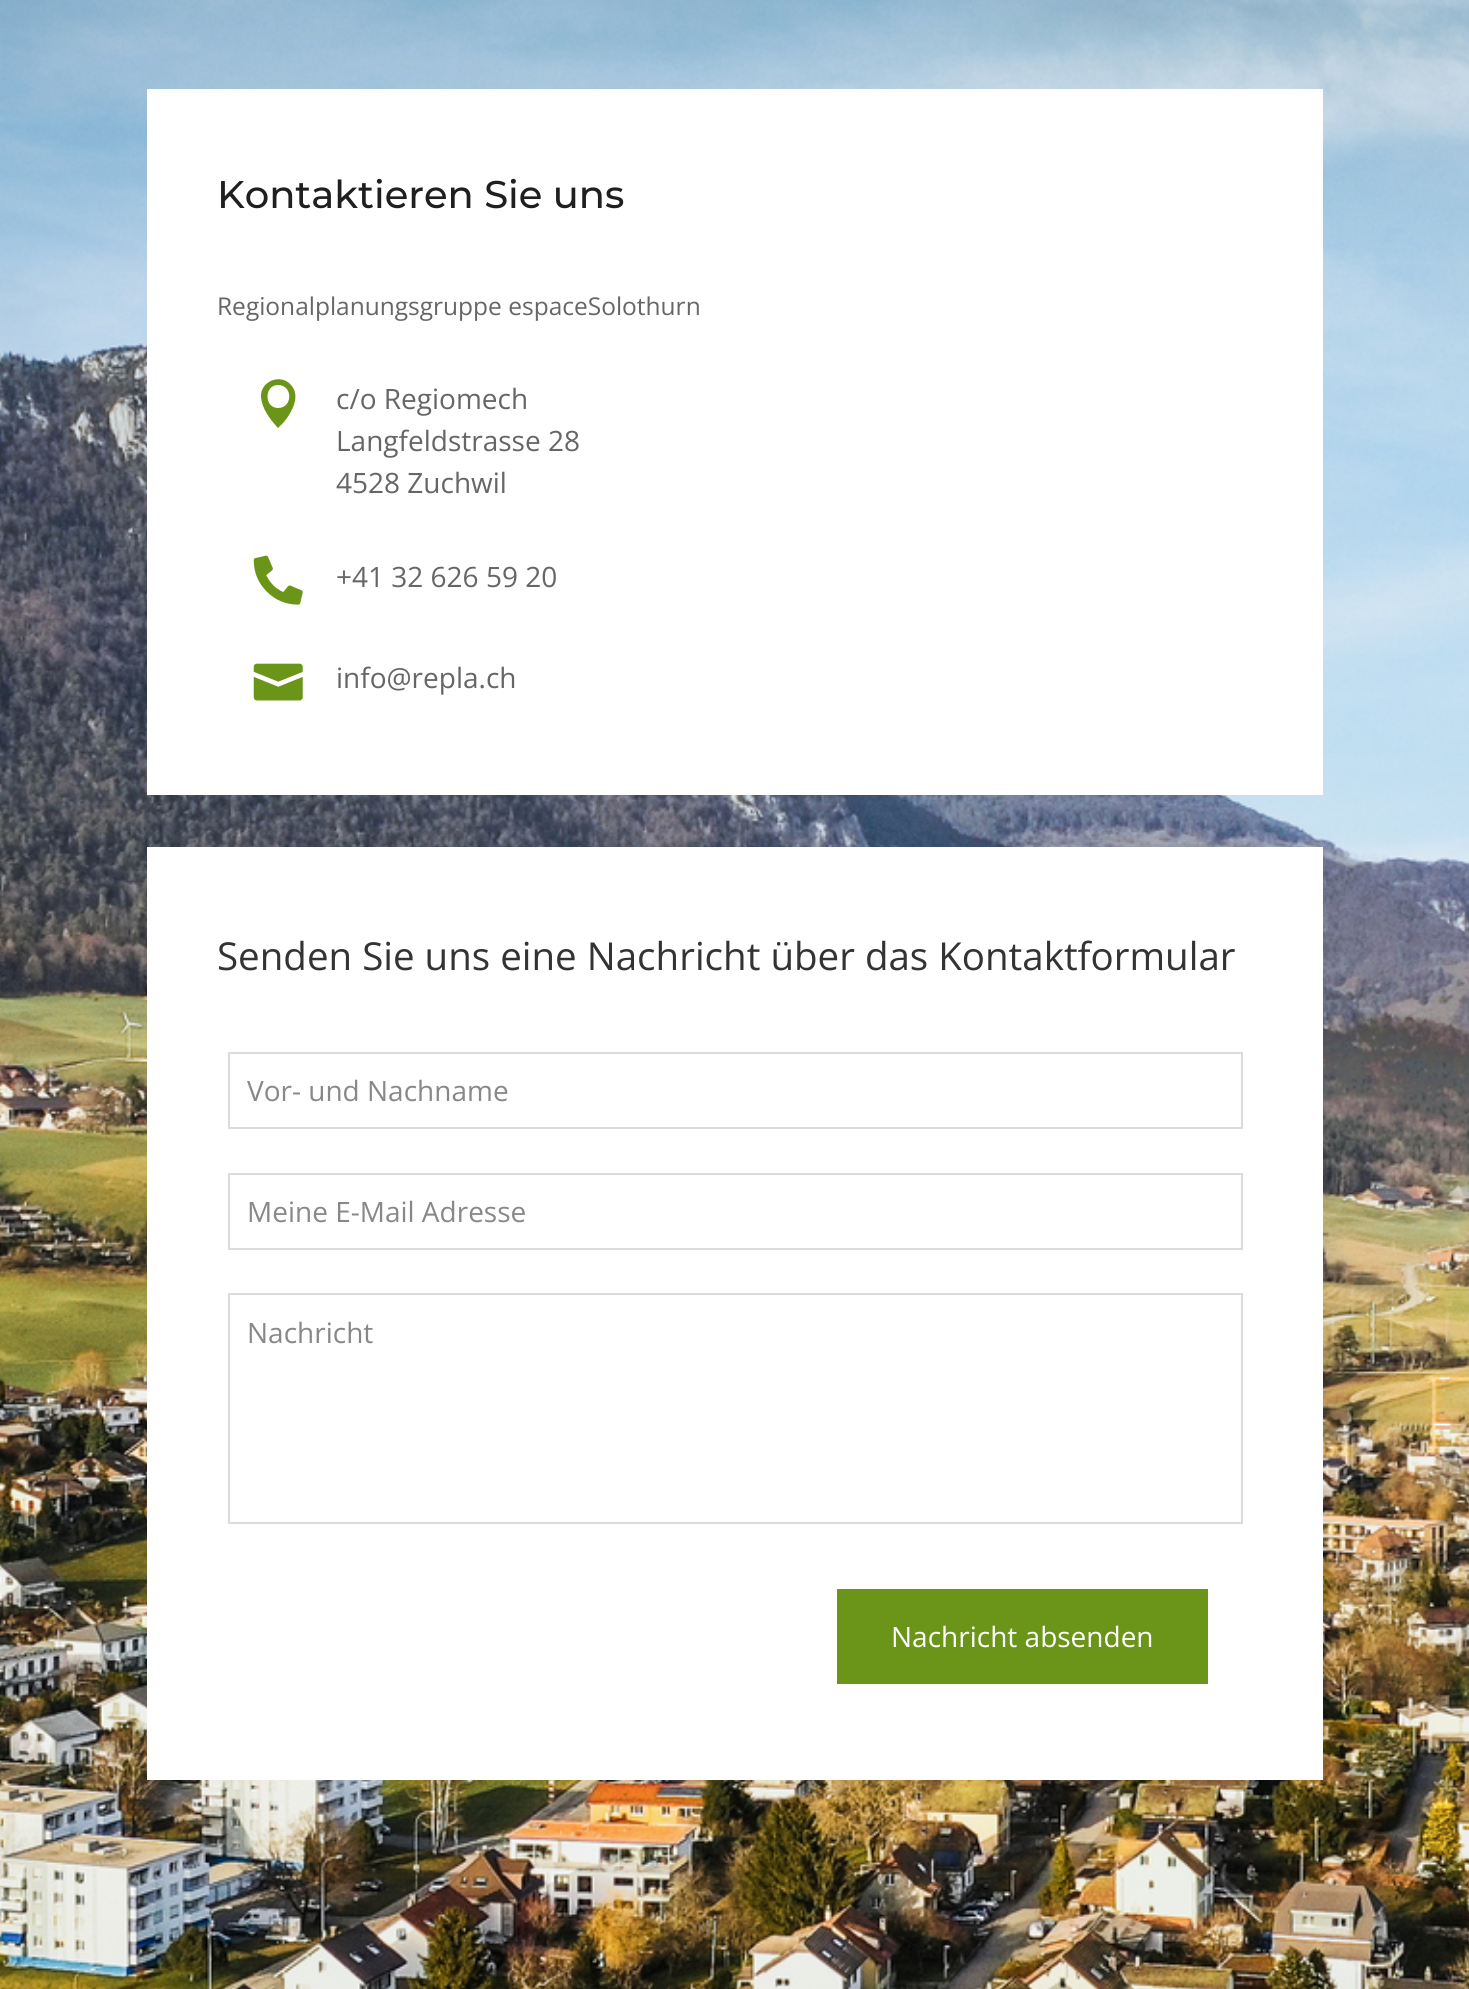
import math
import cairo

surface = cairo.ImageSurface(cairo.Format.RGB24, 1469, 1989)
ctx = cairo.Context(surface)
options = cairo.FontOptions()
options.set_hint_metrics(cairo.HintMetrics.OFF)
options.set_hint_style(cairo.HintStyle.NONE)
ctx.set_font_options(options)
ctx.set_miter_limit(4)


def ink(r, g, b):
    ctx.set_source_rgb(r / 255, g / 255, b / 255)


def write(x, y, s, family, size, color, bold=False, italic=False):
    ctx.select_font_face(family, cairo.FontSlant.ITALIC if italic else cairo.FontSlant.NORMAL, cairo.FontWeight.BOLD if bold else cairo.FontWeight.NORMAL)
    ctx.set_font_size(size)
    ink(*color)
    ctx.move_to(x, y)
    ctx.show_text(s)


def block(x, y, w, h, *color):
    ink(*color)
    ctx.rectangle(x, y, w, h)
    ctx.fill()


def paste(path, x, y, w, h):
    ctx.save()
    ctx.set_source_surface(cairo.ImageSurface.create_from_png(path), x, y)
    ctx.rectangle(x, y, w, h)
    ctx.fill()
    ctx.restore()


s1 = dict(family="Montserrat Medium", size=38.5, color=(31, 31, 31))
s2 = dict(family="Open Sans", size=24.5, color=(102, 102, 102))
s3 = dict(family="Open Sans", size=28, color=(102, 102, 102))
s4 = dict(family="Open Sans", size=38.5, color=(51, 51, 51))
s5 = dict(family="Open Sans", size=28, color=(136, 136, 136))
s6 = dict(family="Open Sans", size=28, color=(255, 255, 255))

ink(255, 255, 255)
ctx.paint()
paste("pic1.png", 0, 0, 1469, 1989)
block(147, 89, 1176, 706, 255, 255, 255)
write(217, 208, "Kontaktieren Sie uns", **s1)
write(217, 315, "Regionalplanungsgruppe espaceSolothurn", **s2)
ink(106, 149, 25)
ctx.new_path()
ctx.move_to(277, 427)
ctx.line_to(278, 428)
ctx.line_to(284, 422)
ctx.curve_to(292, 412, 301, 396, 291, 385)
ctx.curve_to(281, 373, 260, 381, 261, 397)
ctx.curve_to(262, 409, 270, 419, 277, 427)
ctx.close_path()
ctx.move_to(278, 385)
ctx.curve_to(293, 385, 293, 408, 278, 408)
ctx.curve_to(264, 408, 264, 385, 278, 385)
ctx.close_path()
ctx.fill()
write(336, 409, "c/o Regiomech", **s3)
write(336, 451, "Langfeldstrasse 28", **s3)
write(336, 493, "4528 Zuchwil", **s3)
paste("pic2.png", 253, 555, 50, 50)
write(336, 587, "+41 32 626 59 20", **s3)
paste("pic3.png", 253, 663, 50, 38)
write(336, 688, "info@repla.ch", **s3)
block(147, 847, 1176, 933, 255, 255, 255)
write(217, 970, "Senden Sie uns eine Nachricht über das Kontaktformular", **s4)
ctx.rectangle(229, 1053, 1013, 75)
ink(219, 219, 219)
ctx.stroke()
write(247, 1101, "Vor- und Nachname", **s5)
ctx.rectangle(229, 1174, 1013, 75)
ink(219, 219, 219)
ctx.stroke()
write(247, 1222, "Meine E-Mail Adresse", **s5)
ctx.rectangle(229, 1294, 1013, 229)
ink(219, 219, 219)
ctx.stroke()
write(247, 1343, "Nachricht", **s5)
block(837, 1589, 371, 95, 106, 149, 25)
write(891, 1647, "Nachricht absenden", **s6)
surface.write_to_png("screenshot.png")
